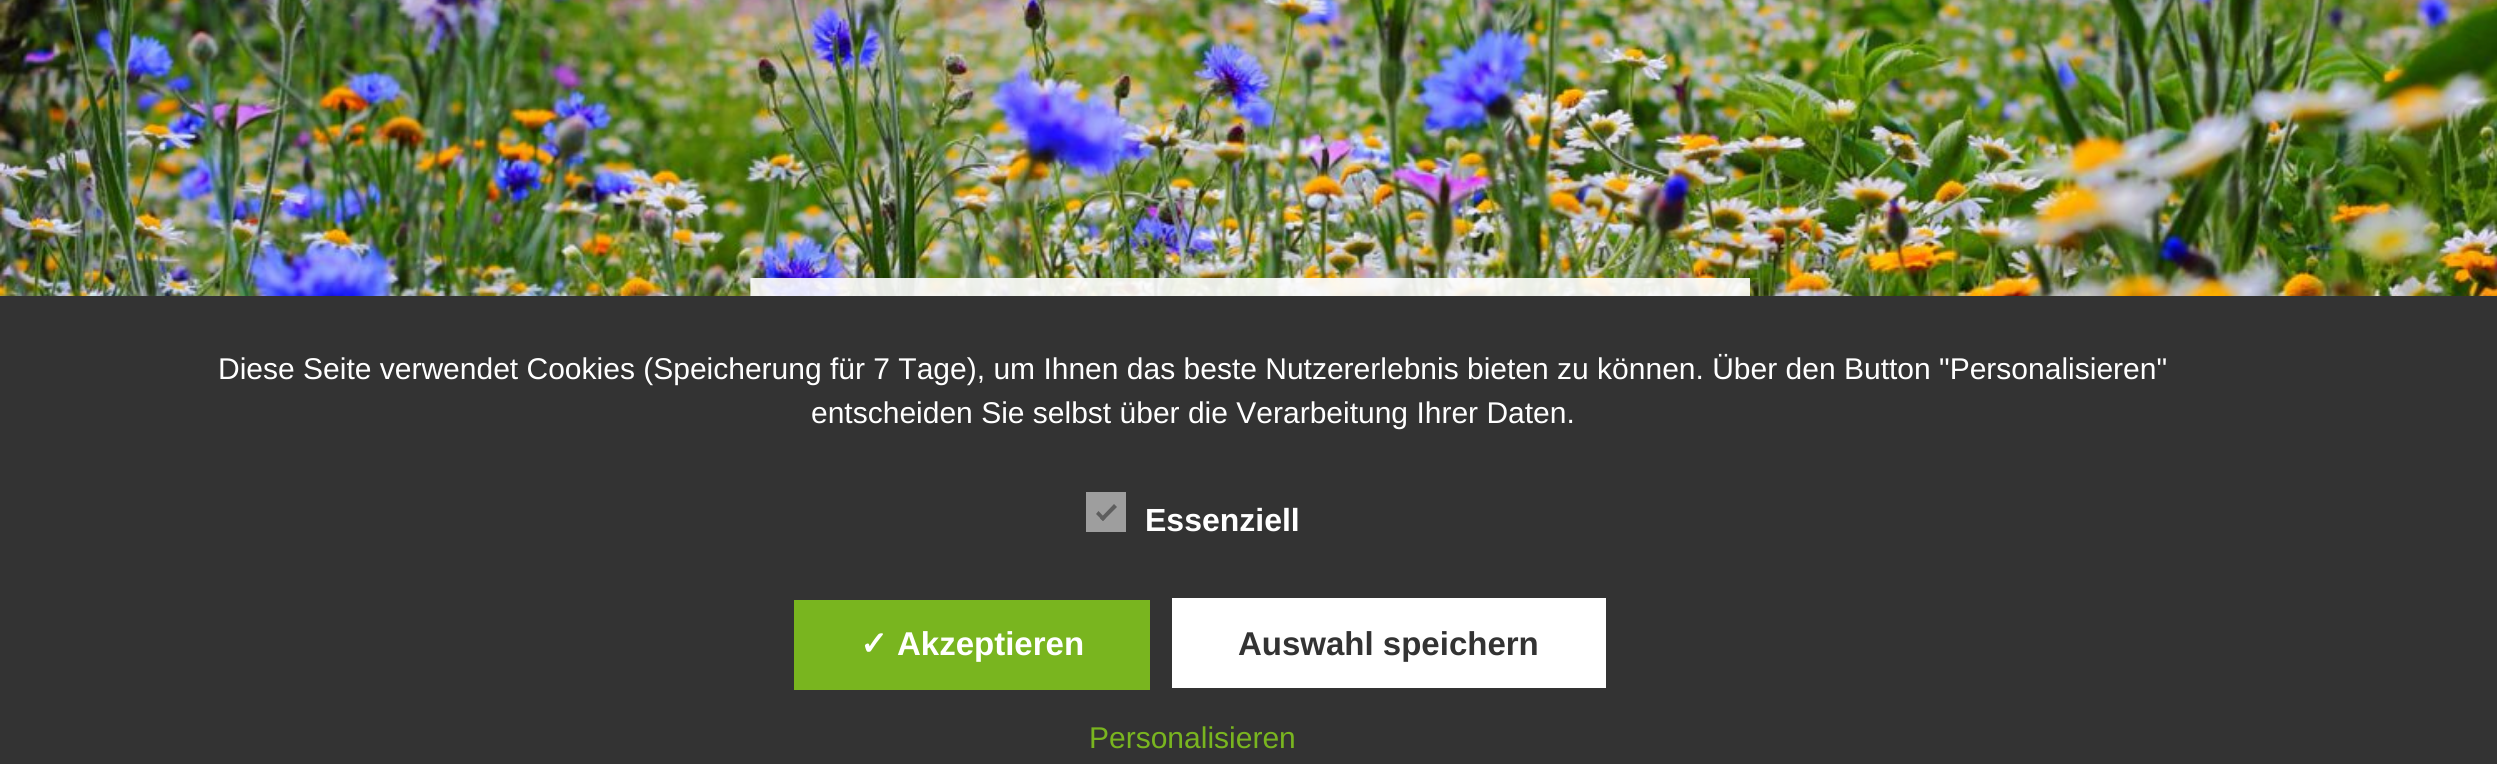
import math
import cairo

surface = cairo.ImageSurface(cairo.Format.RGB24, 2497, 764)
ctx = cairo.Context(surface)
options = cairo.FontOptions()
options.set_hint_metrics(cairo.HintMetrics.OFF)
options.set_hint_style(cairo.HintStyle.NONE)
ctx.set_font_options(options)
ctx.set_miter_limit(4)


def ink(r, g, b):
    ctx.set_source_rgb(r / 255, g / 255, b / 255)


def write(x, y, s, family, size, color, bold=False, italic=False):
    ctx.select_font_face(family, cairo.FontSlant.ITALIC if italic else cairo.FontSlant.NORMAL, cairo.FontWeight.BOLD if bold else cairo.FontWeight.NORMAL)
    ctx.set_font_size(size)
    ink(*color)
    ctx.move_to(x, y)
    ctx.show_text(s)


def block(x, y, w, h, *color):
    ink(*color)
    ctx.rectangle(x, y, w, h)
    ctx.fill()


def paste(path, x, y, w, h):
    ctx.save()
    ctx.set_source_surface(cairo.ImageSurface.create_from_png(path), x, y)
    ctx.rectangle(x, y, w, h)
    ctx.fill()
    ctx.restore()


s1 = dict(family="Liberation Sans", size=30, color=(255, 255, 255))
s2 = dict(family="Liberation Sans", size=32, color=(255, 255, 255), bold=True)
s3 = dict(family="DejaVu Sans", size=33, color=(255, 255, 255), bold=True)
s4 = dict(family="Liberation Sans", size=33, color=(255, 255, 255), bold=True)
s5 = dict(family="Liberation Sans", size=33, color=(51, 51, 51), bold=True)
s6 = dict(family="Liberation Sans", size=30, color=(121, 181, 31))

ink(255, 255, 255)
ctx.paint()
paste("pic1.png", 0, 0, 2497, 296)
paste("pic2.png", 750, 278, 1000, 18)
block(0, 296, 2497, 468, 51, 51, 51)
write(218, 379, "Diese Seite verwendet Cookies (Speicherung für 7 Tage), um Ihnen das beste Nutzererlebnis bieten zu können. Über den Button \"Personalisieren\"", **s1)
write(811, 423, "entscheiden Sie selbst über die Verarbeitung Ihrer Daten.", **s1)
block(1086, 492, 40, 40, 158, 158, 158)
ink(94, 94, 94)
ctx.new_path()
ctx.move_to(1114, 504)
ctx.line_to(1117, 507)
ctx.line_to(1103, 521)
ctx.line_to(1100, 518.5)
ctx.close_path()
ctx.fill()
ctx.new_path()
ctx.move_to(1098.5, 511)
ctx.line_to(1105.5, 518.5)
ctx.line_to(1103, 521)
ctx.line_to(1096, 514)
ctx.close_path()
ctx.fill()
write(1145, 531, "Essenziell", **s2)
block(794, 600, 356, 90, 121, 181, 31)
write(860, 655, "✓", **s3)
write(897, 655, "Akzeptieren", **s4)
block(1172, 598, 434, 90, 255, 255, 255)
write(1238, 655, "Auswahl speichern", **s5)
write(1089, 748, "Personalisieren", **s6)
surface.write_to_png("screenshot.png")
